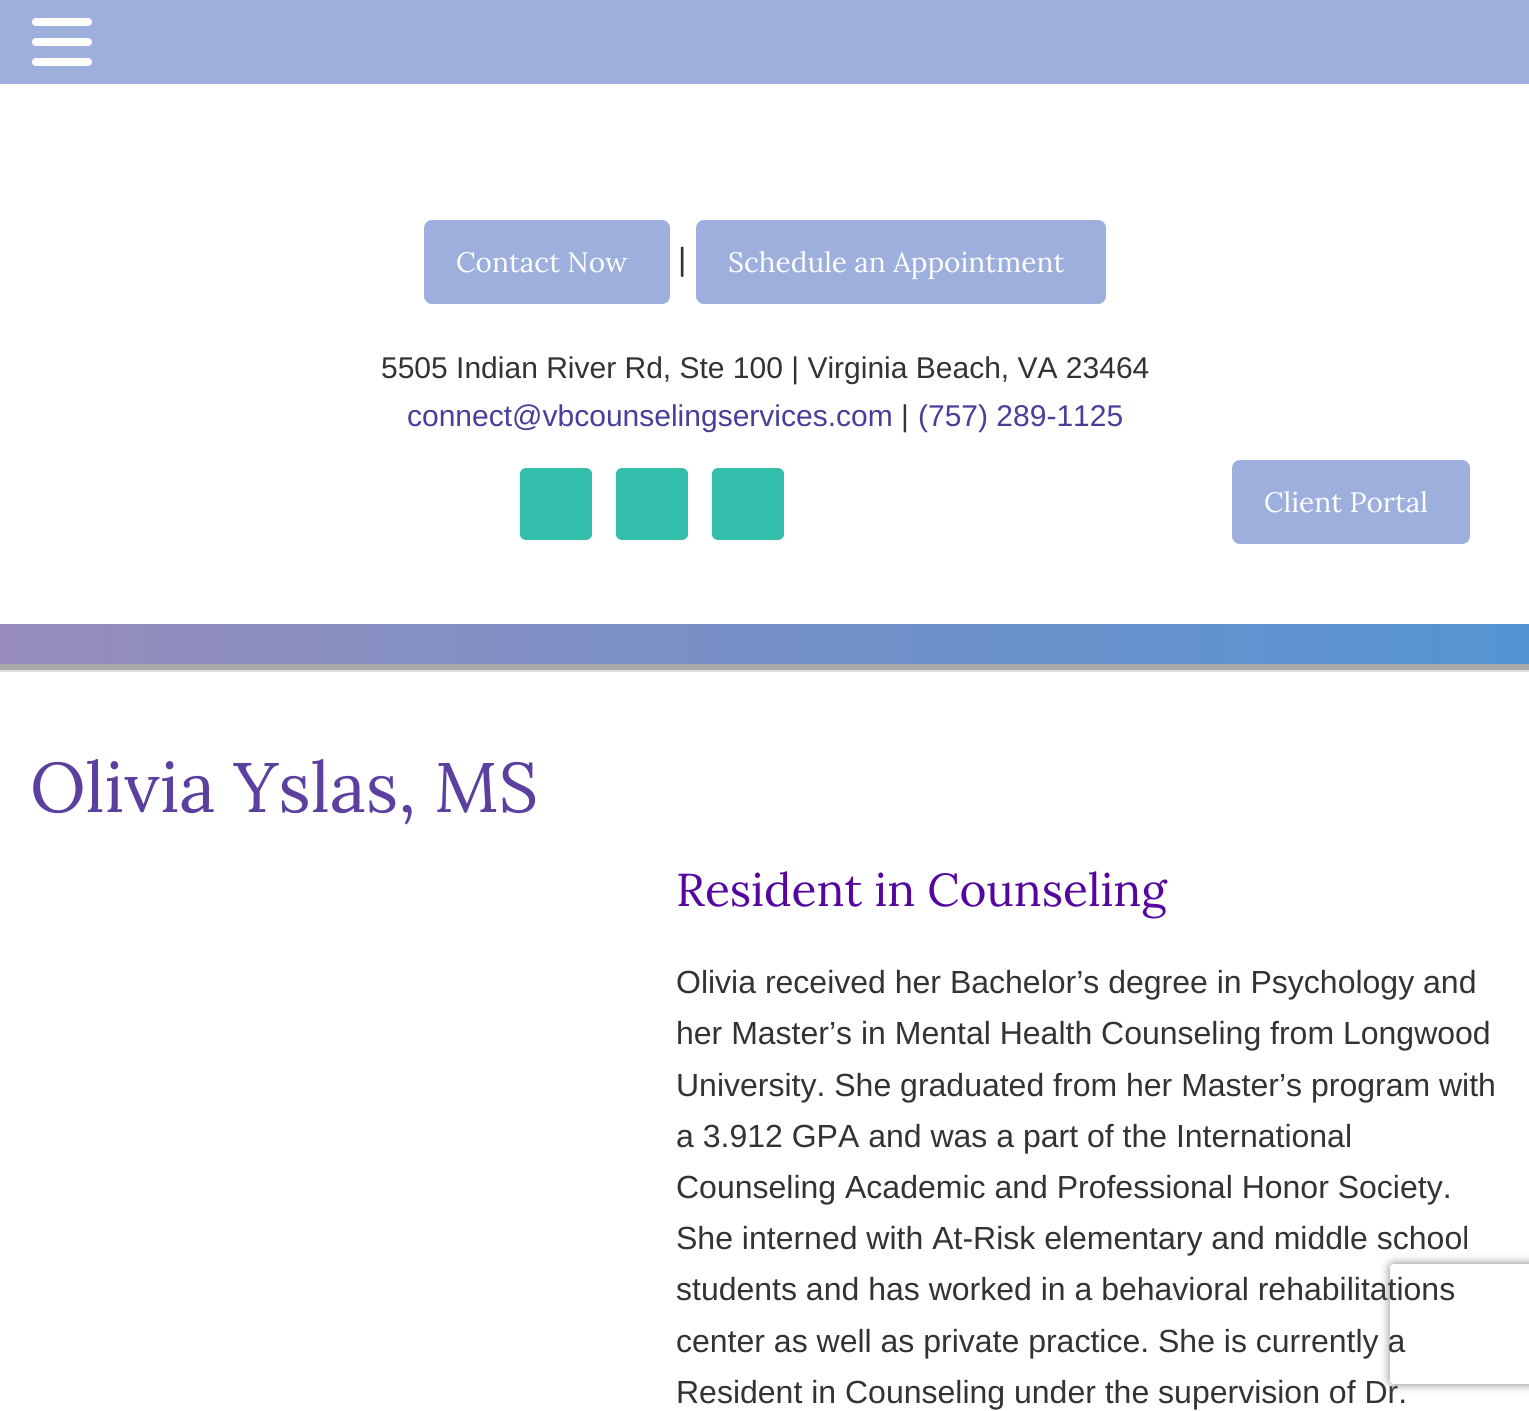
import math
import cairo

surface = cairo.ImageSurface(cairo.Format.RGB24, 1529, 1411)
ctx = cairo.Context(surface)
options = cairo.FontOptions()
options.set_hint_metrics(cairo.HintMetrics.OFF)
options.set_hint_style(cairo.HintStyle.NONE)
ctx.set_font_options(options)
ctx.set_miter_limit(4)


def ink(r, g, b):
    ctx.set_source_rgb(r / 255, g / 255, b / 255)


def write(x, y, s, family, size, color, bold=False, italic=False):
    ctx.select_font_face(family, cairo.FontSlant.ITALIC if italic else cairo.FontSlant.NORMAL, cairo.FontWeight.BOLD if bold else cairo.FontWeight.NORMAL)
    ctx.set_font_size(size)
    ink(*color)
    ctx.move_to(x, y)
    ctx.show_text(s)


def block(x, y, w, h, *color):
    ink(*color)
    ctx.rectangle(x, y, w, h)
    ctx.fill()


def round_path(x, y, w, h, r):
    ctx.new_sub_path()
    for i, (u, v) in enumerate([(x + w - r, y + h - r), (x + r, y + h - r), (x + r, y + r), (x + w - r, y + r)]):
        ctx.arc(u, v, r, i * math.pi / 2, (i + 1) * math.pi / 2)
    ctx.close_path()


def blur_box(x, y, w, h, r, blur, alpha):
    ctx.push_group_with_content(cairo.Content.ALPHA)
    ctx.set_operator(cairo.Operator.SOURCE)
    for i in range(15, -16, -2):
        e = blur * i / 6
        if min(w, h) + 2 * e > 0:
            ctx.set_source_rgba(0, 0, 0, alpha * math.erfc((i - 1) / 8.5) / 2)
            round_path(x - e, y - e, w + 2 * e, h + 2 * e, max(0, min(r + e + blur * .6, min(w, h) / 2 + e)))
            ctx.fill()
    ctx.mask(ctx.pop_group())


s1 = dict(family="Lora", size=28, color=(255, 255, 255))
s2 = dict(family="Liberation Sans", size=32, color=(51, 51, 51))
s3 = dict(family="Liberation Sans", size=30, color=(51, 51, 51))
s4 = dict(family="Liberation Sans", size=30, color=(71, 63, 155))
s5 = dict(family="Lora", size=70, color=(91, 64, 160))
s6 = dict(family="Lora", size=46, color=(84, 6, 158))

ink(255, 255, 255)
ctx.paint()
block(0, 0, 1529, 84, 157, 175, 221)
ink(255, 255, 255)
round_path(32, 18, 60, 8, 4)
ctx.fill()
round_path(32, 38, 60, 8, 4)
ctx.fill()
round_path(32, 58, 60, 8, 4)
ctx.fill()
ink(157, 175, 221)
round_path(424, 220, 246, 84, 8)
ctx.fill()
write(456, 272, "Contact Now", **s1)
write(678, 270, "|", **s2)
ink(157, 175, 221)
round_path(696, 220, 410, 84, 8)
ctx.fill()
write(728, 272, "Schedule an Appointment", **s1)
write(381, 378, "5505 Indian River Rd, Ste 100 | Virginia Beach, VA 23464", **s3)
write(407, 426, "connect@vbcounselingservices.com", **s4)
write(901, 426, "|", **s3)
write(918, 426, "(757) 289-1125", **s4)
ink(51, 191, 172)
round_path(520, 468, 72, 72, 6)
ctx.fill()
round_path(616, 468, 72, 72, 6)
ctx.fill()
round_path(712, 468, 72, 72, 6)
ctx.fill()
ink(157, 175, 221)
round_path(1232, 460, 238, 84, 8)
ctx.fill()
write(1264, 512, "Client Portal", **s1)
gradient = cairo.LinearGradient(0, 644, 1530, 644)
gradient.add_color_stop_rgba(0, 0.596, 0.553, 0.737, 1)
gradient.add_color_stop_rgba(1, 0.329, 0.58, 0.827, 1)
ctx.set_source(gradient)
ctx.rectangle(0, 624, 1529, 40)
ctx.fill()
block(0, 664, 1529, 6, 168, 168, 168)
block(0, 670, 1529, 2, 221, 221, 221)
write(30, 812, "Olivia Yslas, MS", **s5)
write(676, 906, "Resident in Counseling", **s6)
write(676, 993, "Olivia received her Bachelor’s degree in Psychology and", **s2)
write(676, 1044, "her Master’s in Mental Health Counseling from Longwood", **s2)
write(676, 1096, "University. She graduated from her Master’s program with", **s2)
write(676, 1147, "a 3.912 GPA and was a part of the International", **s2)
write(676, 1198, "Counseling Academic and Professional Honor Society.", **s2)
write(676, 1249, "She interned with At-Risk elementary and middle school", **s2)
write(676, 1300, "students and has worked in a behavioral rehabilitations", **s2)
write(676, 1352, "center as well as private practice. She is currently a", **s2)
write(676, 1403, "Resident in Counseling under the supervision of Dr.", **s2)
ctx.save()
ctx.set_fill_rule(cairo.FillRule.EVEN_ODD)
ctx.new_path()
ctx.move_to(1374, 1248)
ctx.line_to(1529, 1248)
ctx.line_to(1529, 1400)
ctx.line_to(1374, 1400)
ctx.close_path()
ctx.move_to(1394, 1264)
ctx.line_to(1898, 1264)
ctx.curve_to(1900, 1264, 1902, 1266, 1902, 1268)
ctx.line_to(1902, 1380)
ctx.curve_to(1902, 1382, 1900, 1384, 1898, 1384)
ctx.line_to(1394, 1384)
ctx.curve_to(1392, 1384, 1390, 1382, 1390, 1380)
ctx.line_to(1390, 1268)
ctx.curve_to(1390, 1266, 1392, 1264, 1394, 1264)
ctx.close_path()
ctx.clip()
ink(128, 128, 128)
blur_box(1390, 1264, 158, 120, 4, 5, 1)
ctx.restore()
surface.write_to_png("screenshot.png")
